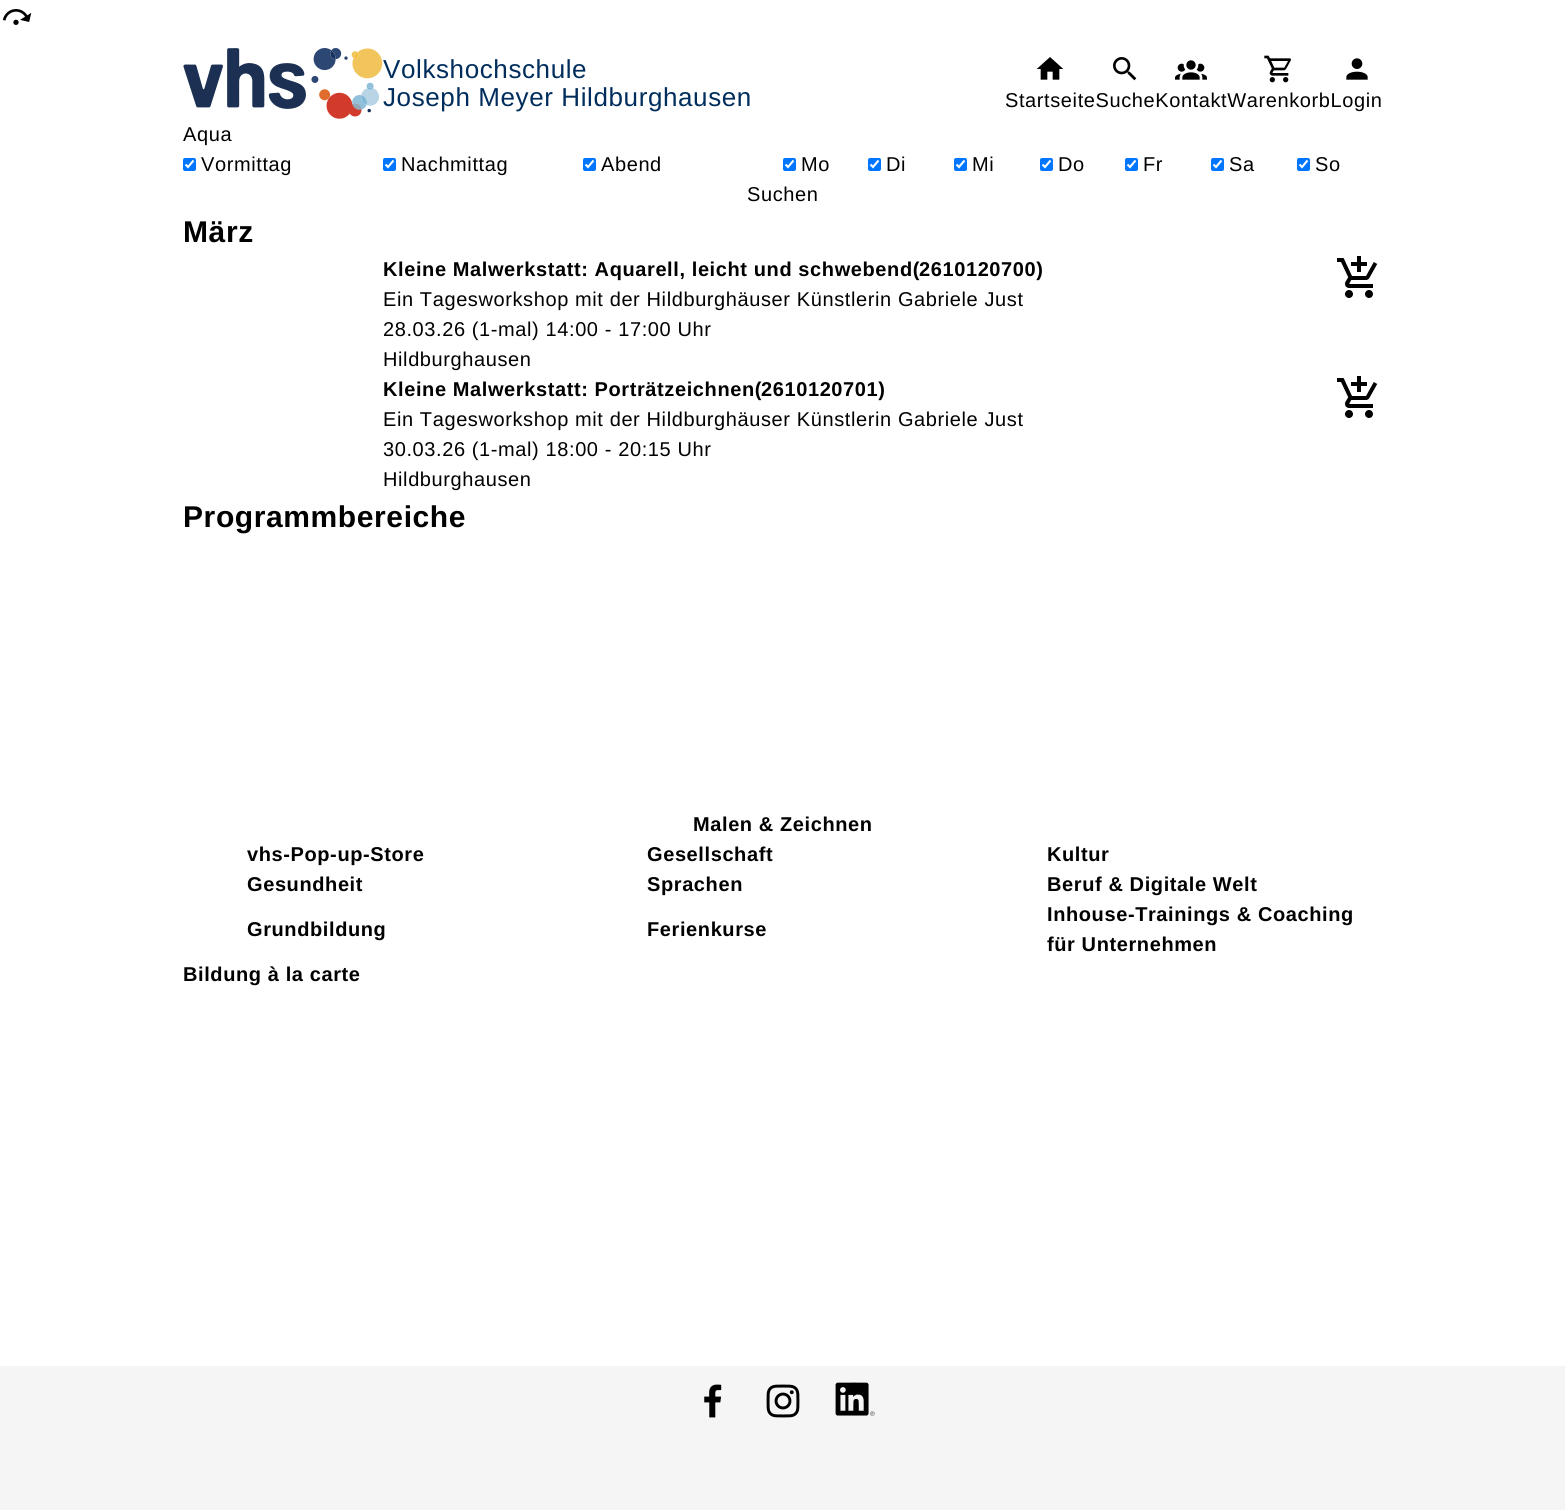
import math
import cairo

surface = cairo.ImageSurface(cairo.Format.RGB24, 1565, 1510)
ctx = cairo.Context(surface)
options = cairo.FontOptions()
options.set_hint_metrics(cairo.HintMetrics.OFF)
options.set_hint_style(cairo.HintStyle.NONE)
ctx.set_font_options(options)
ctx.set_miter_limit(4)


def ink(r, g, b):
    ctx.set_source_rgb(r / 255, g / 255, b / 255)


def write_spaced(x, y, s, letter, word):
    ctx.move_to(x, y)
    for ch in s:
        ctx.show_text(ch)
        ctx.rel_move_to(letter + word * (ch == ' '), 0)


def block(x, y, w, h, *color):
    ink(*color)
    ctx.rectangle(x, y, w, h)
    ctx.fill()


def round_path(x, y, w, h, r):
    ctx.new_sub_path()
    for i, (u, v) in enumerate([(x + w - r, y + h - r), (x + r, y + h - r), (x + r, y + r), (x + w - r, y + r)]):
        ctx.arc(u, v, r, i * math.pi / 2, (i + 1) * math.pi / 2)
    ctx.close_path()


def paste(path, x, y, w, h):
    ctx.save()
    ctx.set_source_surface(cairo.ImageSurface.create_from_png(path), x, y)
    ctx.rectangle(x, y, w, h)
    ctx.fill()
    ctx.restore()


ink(255, 255, 255)
ctx.paint()
paste("pic1.png", 2, 9, 30, 16)
ctx.select_font_face("Liberation Sans")
ctx.set_font_size(26)
ink(0, 45, 92)
write_spaced(383, 78, "Volkshochschule", 0.6, 0)
write_spaced(383, 106, "Joseph Meyer Hildburghausen", 0.6, 0)
paste("pic2.png", 183, 48, 200, 71)
paste("pic3.png", 1113, 57, 24, 24)
paste("pic4.png", 1175, 60, 32, 20)
paste("pic5.png", 1264, 55, 27, 28)
paste("pic6.png", 1346, 58, 22, 22)
paste("pic7.png", 1036, 57, 28, 23)
ctx.set_font_size(20)
ink(0, 0, 0)
write_spaced(1005, 107, "StartseiteSucheKontaktWarenkorbLogin", 0.6, 0)
write_spaced(183, 141, "Aqua", 0.6, 0)
ink(0, 117, 255)
round_path(183, 158, 13, 13, 2)
ctx.fill()
ctx.new_path()
ctx.move_to(185.5, 164.5)
ctx.line_to(188, 167)
ctx.line_to(193.5, 160.5)
ink(255, 255, 255)
ctx.set_line_width(2.1)
ctx.stroke()
ink(0, 0, 0)
write_spaced(201, 171, "Vormittag", 0.6, 0)
ink(0, 117, 255)
round_path(383, 158, 13, 13, 2)
ctx.fill()
ctx.new_path()
ctx.move_to(385.5, 164.5)
ctx.line_to(388, 167)
ctx.line_to(393.5, 160.5)
ink(255, 255, 255)
ctx.stroke()
ink(0, 0, 0)
write_spaced(401, 171, "Nachmittag", 0.6, 0)
ink(0, 117, 255)
round_path(583, 158, 13, 13, 2)
ctx.fill()
ctx.new_path()
ctx.move_to(585.5, 164.5)
ctx.line_to(588, 167)
ctx.line_to(593.5, 160.5)
ink(255, 255, 255)
ctx.stroke()
ink(0, 0, 0)
write_spaced(601, 171, "Abend", 0.6, 0)
ink(0, 117, 255)
round_path(783, 158, 13, 13, 2)
ctx.fill()
ctx.new_path()
ctx.move_to(785.5, 164.5)
ctx.line_to(788, 167)
ctx.line_to(793.5, 160.5)
ink(255, 255, 255)
ctx.stroke()
ink(0, 0, 0)
write_spaced(801, 171, "Mo", 0.6, 0)
ink(0, 117, 255)
round_path(868, 158, 13, 13, 2)
ctx.fill()
ctx.new_path()
ctx.move_to(870.5, 164.5)
ctx.line_to(873, 167)
ctx.line_to(878.5, 160.5)
ink(255, 255, 255)
ctx.stroke()
ink(0, 0, 0)
write_spaced(886, 171, "Di", 0.6, 0)
ink(0, 117, 255)
round_path(954, 158, 13, 13, 2)
ctx.fill()
ctx.new_path()
ctx.move_to(956.5, 164.5)
ctx.line_to(959, 167)
ctx.line_to(964.5, 160.5)
ink(255, 255, 255)
ctx.stroke()
ink(0, 0, 0)
write_spaced(972, 171, "Mi", 0.6, 0)
ink(0, 117, 255)
round_path(1040, 158, 13, 13, 2)
ctx.fill()
ctx.new_path()
ctx.move_to(1042.5, 164.5)
ctx.line_to(1045, 167)
ctx.line_to(1050.5, 160.5)
ink(255, 255, 255)
ctx.stroke()
ink(0, 0, 0)
write_spaced(1058, 171, "Do", 0.6, 0)
ink(0, 117, 255)
round_path(1125, 158, 13, 13, 2)
ctx.fill()
ctx.new_path()
ctx.move_to(1127.5, 164.5)
ctx.line_to(1130, 167)
ctx.line_to(1135.5, 160.5)
ink(255, 255, 255)
ctx.stroke()
ink(0, 0, 0)
write_spaced(1143, 171, "Fr", 0.6, 0)
ink(0, 117, 255)
round_path(1211, 158, 13, 13, 2)
ctx.fill()
ctx.new_path()
ctx.move_to(1213.5, 164.5)
ctx.line_to(1216, 167)
ctx.line_to(1221.5, 160.5)
ink(255, 255, 255)
ctx.stroke()
ink(0, 0, 0)
write_spaced(1229, 171, "Sa", 0.6, 0)
ink(0, 117, 255)
round_path(1297, 158, 13, 13, 2)
ctx.fill()
ctx.new_path()
ctx.move_to(1299.5, 164.5)
ctx.line_to(1302, 167)
ctx.line_to(1307.5, 160.5)
ink(255, 255, 255)
ctx.stroke()
ink(0, 0, 0)
write_spaced(1315, 171, "So", 0.6, 0)
write_spaced(747, 201, "Suchen", 0.6, 0)
ctx.select_font_face("Liberation Sans", cairo.FontSlant.NORMAL, cairo.FontWeight.BOLD)
ctx.set_font_size(30)
write_spaced(183, 242, "März", 0.6, 0)
ctx.set_font_size(20)
write_spaced(383, 276, "Kleine Malwerkstatt: Aquarell, leicht und schwebend(", 0.6, 0)
write_spaced(919, 276, "2610120700)", 0.6, 0)
ctx.select_font_face("Liberation Sans")
write_spaced(383, 306, "Ein Tagesworkshop mit der Hildburghäuser Künstlerin Gabriele Just", 0.6, 0)
write_spaced(383, 336, "28.03.26 (1-mal) 14:00 - 17:00 Uhr", 0.6, 0)
write_spaced(383, 366, "Hildburghausen", 0.6, 0)
paste("pic8.png", 1337, 256, 41, 42)
ctx.select_font_face("Liberation Sans", cairo.FontSlant.NORMAL, cairo.FontWeight.BOLD)
write_spaced(383, 396, "Kleine Malwerkstatt: Porträtzeichnen(", 0.6, 0)
write_spaced(761, 396, "2610120701)", 0.6, 0)
ctx.select_font_face("Liberation Sans")
write_spaced(383, 426, "Ein Tagesworkshop mit der Hildburghäuser Künstlerin Gabriele Just", 0.6, 0)
write_spaced(383, 456, "30.03.26 (1-mal) 18:00 - 20:15 Uhr", 0.6, 0)
write_spaced(383, 486, "Hildburghausen", 0.6, 0)
paste("pic8.png", 1337, 376, 41, 42)
ctx.select_font_face("Liberation Sans", cairo.FontSlant.NORMAL, cairo.FontWeight.BOLD)
ctx.set_font_size(30)
write_spaced(183, 527, "Programmbereiche", 0.6, 0)
ctx.set_font_size(20)
write_spaced(693, 831, "Malen & Zeichnen", 0.6, 0)
write_spaced(247, 861, "vhs-Pop-up-Store", 0.6, 0)
write_spaced(647, 861, "Gesellschaft", 0.6, 0)
write_spaced(1047, 861, "Kultur", 0.6, 0)
write_spaced(247, 891, "Gesundheit", 0.6, 0)
write_spaced(647, 891, "Sprachen", 0.6, 0)
write_spaced(1047, 891, "Beruf & Digitale Welt", 0.6, 0)
write_spaced(247, 936, "Grundbildung", 0.6, 0)
write_spaced(647, 936, "Ferienkurse", 0.6, 0)
write_spaced(1047, 921, "Inhouse-Trainings & Coaching", 0.6, 0)
write_spaced(1047, 951, "für Unternehmen", 0.6, 0)
write_spaced(183, 981, "Bildung à la carte", 0.6, 0)
block(0, 1366, 1565, 144, 245, 245, 245)
paste("pic9.png", 704, 1384, 18, 34)
paste("pic10.png", 766, 1384, 34, 34)
paste("pic11.png", 835, 1382, 40, 34)
surface.write_to_png("screenshot.png")
